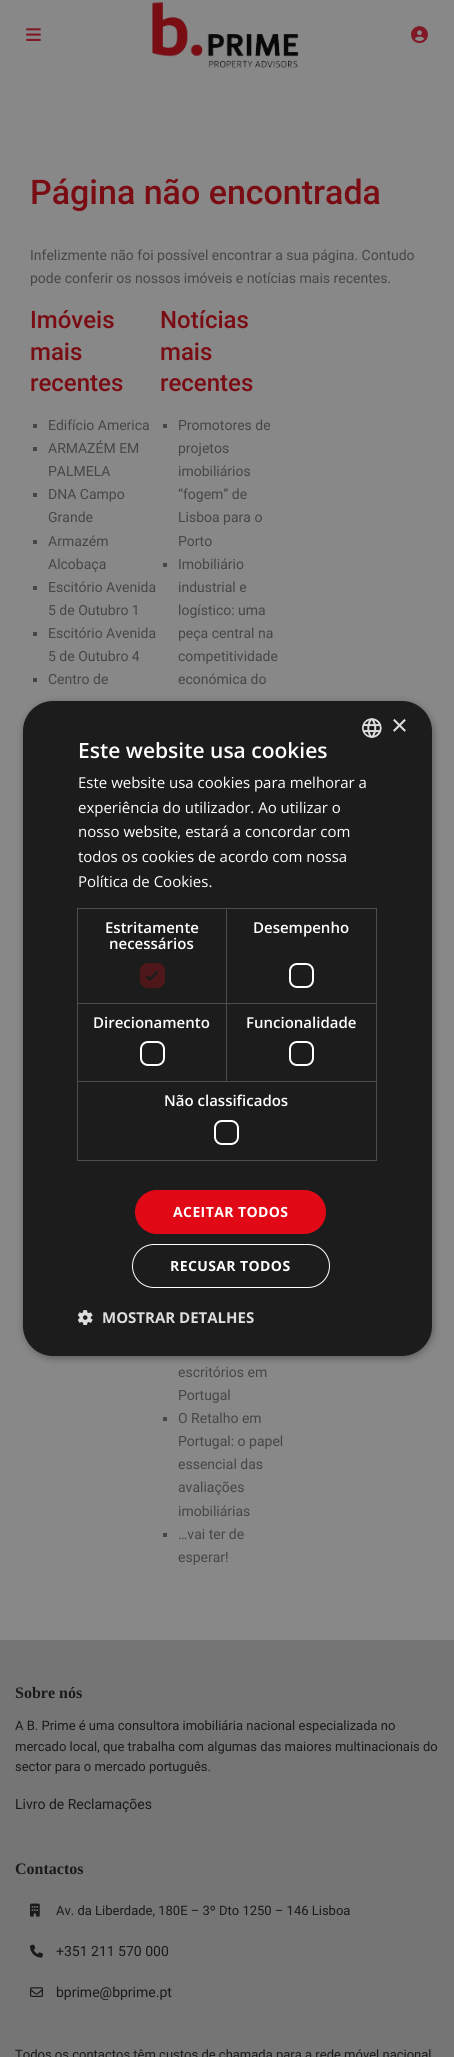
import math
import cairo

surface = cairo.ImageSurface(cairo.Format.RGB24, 454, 2057)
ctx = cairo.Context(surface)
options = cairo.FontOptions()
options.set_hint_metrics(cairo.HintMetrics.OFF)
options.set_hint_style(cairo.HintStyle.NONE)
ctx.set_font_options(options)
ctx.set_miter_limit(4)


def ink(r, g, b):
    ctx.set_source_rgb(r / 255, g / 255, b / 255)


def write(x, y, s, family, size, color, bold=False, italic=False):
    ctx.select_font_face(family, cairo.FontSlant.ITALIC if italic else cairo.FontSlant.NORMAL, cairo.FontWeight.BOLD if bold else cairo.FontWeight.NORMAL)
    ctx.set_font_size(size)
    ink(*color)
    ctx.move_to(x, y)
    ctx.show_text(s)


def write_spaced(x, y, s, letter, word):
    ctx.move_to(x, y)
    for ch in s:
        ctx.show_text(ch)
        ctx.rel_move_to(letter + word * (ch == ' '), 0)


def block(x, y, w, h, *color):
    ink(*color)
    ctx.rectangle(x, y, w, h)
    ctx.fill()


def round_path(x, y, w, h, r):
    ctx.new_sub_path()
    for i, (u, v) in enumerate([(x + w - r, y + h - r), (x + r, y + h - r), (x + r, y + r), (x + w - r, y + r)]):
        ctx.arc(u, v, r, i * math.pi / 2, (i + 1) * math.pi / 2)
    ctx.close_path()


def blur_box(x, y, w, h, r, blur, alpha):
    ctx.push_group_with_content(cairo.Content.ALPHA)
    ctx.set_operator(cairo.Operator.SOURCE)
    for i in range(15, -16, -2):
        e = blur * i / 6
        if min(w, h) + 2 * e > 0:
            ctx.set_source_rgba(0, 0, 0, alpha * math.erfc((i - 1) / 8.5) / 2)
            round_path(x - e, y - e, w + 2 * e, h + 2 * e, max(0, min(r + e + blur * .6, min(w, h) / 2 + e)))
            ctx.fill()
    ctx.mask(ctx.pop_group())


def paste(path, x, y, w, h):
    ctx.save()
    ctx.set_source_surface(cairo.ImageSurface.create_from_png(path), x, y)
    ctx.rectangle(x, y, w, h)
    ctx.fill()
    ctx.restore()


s1 = dict(family="Roboto Medium", size=34, color=(122, 13, 20))
s2 = dict(family="Roboto", size=14, color=(70, 70, 70))
s3 = dict(family="Roboto Medium", size=24, color=(122, 13, 20))
s4 = dict(family="Liberation Serif", size=16, color=(26, 26, 26), bold=True)
s5 = dict(family="Roboto", size=13, color=(26, 26, 26))
s6 = dict(family="Roboto", size=14, color=(26, 26, 26))
s7 = dict(family="Liberation Sans", size=29, color=(221, 221, 221))
s8 = dict(family="Open Sans SemiBold", size=21, color=(255, 255, 255))
s9 = dict(family="Open Sans", size=15, color=(255, 255, 255))
s10 = dict(family="Open Sans SemiBold", size=15, color=(255, 255, 255))
s11 = dict(family="Open Sans", size=15, color=(221, 221, 221), bold=True)

ink(136, 136, 136)
ctx.paint()
paste("pic1.png", 26, 28, 15, 13)
paste("pic2.png", 152, 2, 147, 66)
paste("pic3.png", 411, 26, 17, 18)
write(30, 204, "Página não encontrada", **s1)
write(30, 260, "Infelizmente não foi possível encontrar a sua página. Contudo", **s2)
write(30, 283, "pode conferir os nossos imóveis e notícias mais recentes.", **s2)
write(30, 328, "Imóveis", **s3)
write(30, 360, "mais", **s3)
write(30, 391, "recentes", **s3)
block(33, 424, 4, 4, 70, 70, 70)
write(48, 430, "Edifício America", **s2)
block(33, 447, 4, 4, 70, 70, 70)
write(48, 453, "ARMAZÉM EM", **s2)
write(48, 476, "PALMELA", **s2)
block(33, 493, 4, 4, 70, 70, 70)
write(48, 499, "DNA Campo", **s2)
write(48, 522, "Grande", **s2)
block(33, 540, 4, 4, 70, 70, 70)
write(48, 546, "Armazém", **s2)
write(48, 569, "Alcobaça", **s2)
block(33, 586, 4, 4, 70, 70, 70)
write(48, 592, "Escitório Avenida", **s2)
write(48, 615, "5 de Outubro 1", **s2)
block(33, 632, 4, 4, 70, 70, 70)
write(48, 638, "Escitório Avenida", **s2)
write(48, 661, "5 de Outubro 4", **s2)
block(33, 678, 4, 4, 70, 70, 70)
write(48, 684, "Centro de", **s2)
write(160, 328, "Notícias", **s3)
write(160, 360, "mais", **s3)
write(160, 391, "recentes", **s3)
block(163, 424, 4, 4, 70, 70, 70)
write(178, 430, "Promotores de", **s2)
write(178, 453, "projetos", **s2)
write(178, 476, "imobiliários", **s2)
write(178, 499, "“fogem” de", **s2)
write(178, 522, "Lisboa para o", **s2)
write(178, 546, "Porto", **s2)
block(163, 563, 4, 4, 70, 70, 70)
write(178, 569, "Imobiliário", **s2)
write(178, 592, "industrial e", **s2)
write(178, 615, "logístico: uma", **s2)
write(178, 638, "peça central na", **s2)
write(178, 661, "competitividade", **s2)
write(178, 684, "económica do", **s2)
write(178, 1377, "escritórios em", **s2)
write(178, 1400, "Portugal", **s2)
block(163, 1417, 4, 4, 70, 70, 70)
write(178, 1423, "O Retalho em", **s2)
write(178, 1446, "Portugal: o papel", **s2)
write(178, 1469, "essencial das", **s2)
write(178, 1492, "avaliações", **s2)
write(178, 1516, "imobiliárias", **s2)
block(163, 1533, 4, 4, 70, 70, 70)
write(178, 1539, "…vai ter de", **s2)
write(178, 1562, "esperar!", **s2)
block(0, 1640, 454, 417, 117, 117, 117)
write(15, 1698, "Sobre nós", **s4)
write(15, 1730, "A B. Prime é uma consultora imobiliária nacional especializada no", **s5)
write(15, 1751, "mercado local, que trabalha com algumas das maiores multinacionais do", **s5)
write(15, 1771, "sector para o mercado português.", **s5)
write(15, 1809, "Livro de Reclamações", **s6)
write(15, 1874, "Contactos", **s4)
paste("pic4.png", 30, 1903, 10, 14)
write(56, 1915, "Av. da Liberdade, 180E – 3º Dto 1250 – 146 Lisboa", **s5)
paste("pic5.png", 30, 1944, 13, 14)
write(56, 1956, "+351 211 570 000", **s6)
paste("pic6.png", 30, 1987, 13, 10)
write(56, 1997, "bprime@bprime.pt", **s6)
write(15, 2059, "Todos os contactos têm custos de chamada para a rede móvel nacional", **s5)
ink(0, 0, 0)
blur_box(24, 703, 409, 655, 30, 4, 0.35)
ink(28, 28, 28)
round_path(23, 701, 409, 655, 30)
ctx.fill()
paste("pic7.png", 362, 718, 20, 20)
write(391, 735, "×", **s7)
write(78, 758, "Este website usa cookies", **s8)
write(78, 788, "Este website usa cookies para melhorar a", **s9)
write(78, 813, "experiência do utilizador. Ao utilizar o", **s9)
write(78, 837, "nosso website, estará a concordar com", **s9)
write(78, 862, "todos os cookies de acordo com nossa", **s9)
write(78, 887, "Política de Cookies.", **s9)
ctx.rectangle(77.5, 908.5, 149, 95)
ink(77, 77, 77)
ctx.set_line_width(1)
ctx.stroke()
write(105, 933, "Estritamente", **s10)
write(109, 949, "necessários", **s10)
ink(79, 23, 26)
round_path(140, 963, 25, 25, 8)
ctx.fill()
ctx.new_path()
ctx.move_to(146.5, 976)
ctx.line_to(150, 979.5)
ctx.line_to(157.5, 971.5)
ink(28, 28, 28)
ctx.set_line_width(2.6)
ctx.stroke()
ctx.rectangle(226.5, 908.5, 150, 95)
ink(77, 77, 77)
ctx.set_line_width(1)
ctx.stroke()
write(253, 933, "Desempenho", **s10)
round_path(290, 964, 23, 23, 7)
ctx.set_line_width(2)
ctx.stroke()
ctx.rectangle(77.5, 1003.5, 149, 78)
ink(77, 77, 77)
ctx.set_line_width(1)
ctx.stroke()
write(93, 1028, "Direcionamento", **s10)
round_path(141, 1042, 23, 23, 7)
ctx.set_line_width(2)
ctx.stroke()
ctx.rectangle(226.5, 1003.5, 150, 78)
ink(77, 77, 77)
ctx.set_line_width(1)
ctx.stroke()
write(246, 1028, "Funcionalidade", **s10)
round_path(290, 1042, 23, 23, 7)
ctx.set_line_width(2)
ctx.stroke()
ctx.rectangle(77.5, 1081.5, 299, 79)
ink(77, 77, 77)
ctx.set_line_width(1)
ctx.stroke()
write(164, 1106, "Não classificados", **s10)
round_path(215, 1121, 23, 23, 7)
ctx.set_line_width(2)
ctx.stroke()
ink(226, 9, 22)
round_path(135, 1190, 191, 44, 22)
ctx.fill()
ctx.select_font_face("Open Sans", cairo.FontSlant.NORMAL, cairo.FontWeight.BOLD)
ctx.set_font_size(14)
ink(255, 255, 255)
write_spaced(173, 1217, "ACEITAR TODOS", 0.4, 0)
round_path(132.5, 1244.5, 197, 43, 21.5)
ctx.set_line_width(1)
ctx.stroke()
write_spaced(170, 1271, "RECUSAR TODOS", 0.4, 0)
paste("pic8.png", 78, 1310, 15, 15)
write(102, 1323, "MOSTRAR DETALHES", **s11)
surface.write_to_png("screenshot.png")
